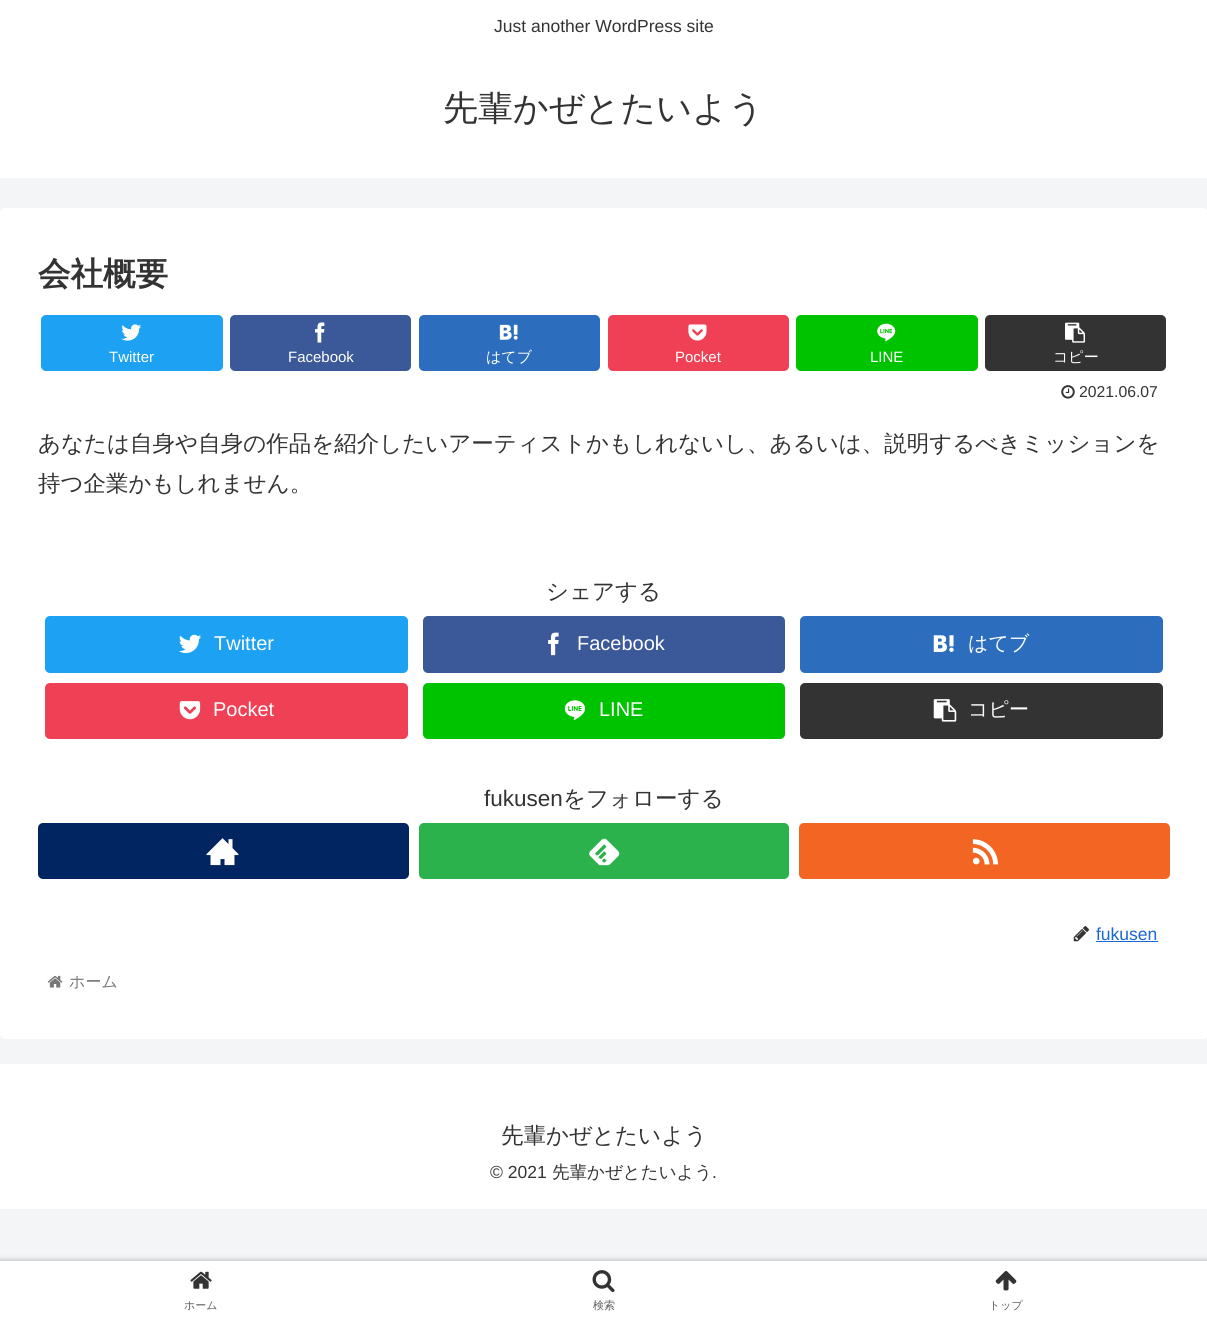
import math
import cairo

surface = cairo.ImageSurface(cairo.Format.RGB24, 1207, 1323)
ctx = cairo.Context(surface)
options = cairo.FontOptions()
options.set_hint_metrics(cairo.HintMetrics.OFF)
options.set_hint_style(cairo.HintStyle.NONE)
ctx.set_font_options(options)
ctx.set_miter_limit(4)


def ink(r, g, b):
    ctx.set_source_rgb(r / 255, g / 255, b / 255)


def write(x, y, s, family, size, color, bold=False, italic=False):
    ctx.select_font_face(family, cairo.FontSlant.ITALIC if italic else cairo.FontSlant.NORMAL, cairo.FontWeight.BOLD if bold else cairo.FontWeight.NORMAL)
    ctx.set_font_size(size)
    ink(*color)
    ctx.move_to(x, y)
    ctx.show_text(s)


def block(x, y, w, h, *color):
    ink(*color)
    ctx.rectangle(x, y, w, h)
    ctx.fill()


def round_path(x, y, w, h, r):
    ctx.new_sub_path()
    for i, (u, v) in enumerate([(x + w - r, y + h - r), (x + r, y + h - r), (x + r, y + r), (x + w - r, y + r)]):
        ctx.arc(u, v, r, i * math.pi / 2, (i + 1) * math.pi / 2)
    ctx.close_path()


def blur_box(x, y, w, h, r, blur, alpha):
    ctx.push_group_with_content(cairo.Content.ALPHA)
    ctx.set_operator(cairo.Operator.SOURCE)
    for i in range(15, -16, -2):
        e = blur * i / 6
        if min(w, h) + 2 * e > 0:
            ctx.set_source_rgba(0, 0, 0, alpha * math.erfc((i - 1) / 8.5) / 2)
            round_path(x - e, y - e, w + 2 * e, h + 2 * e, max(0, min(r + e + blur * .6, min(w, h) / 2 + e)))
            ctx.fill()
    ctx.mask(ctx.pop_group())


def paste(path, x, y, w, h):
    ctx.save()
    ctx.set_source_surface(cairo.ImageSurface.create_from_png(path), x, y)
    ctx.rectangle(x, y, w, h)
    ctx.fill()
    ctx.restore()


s1 = dict(family="Liberation Sans", size=17.5, color=(51, 51, 51))
s2 = dict(family="WenQuanYi Zen Hei Medium", size=35, color=(51, 51, 51))
s3 = dict(family="WenQuanYi Zen Hei", size=32.5, color=(51, 51, 51), bold=True)
s4 = dict(family="Liberation Sans", size=15, color=(255, 255, 255))
s5 = dict(family="WenQuanYi Zen Hei Medium", size=15, color=(255, 255, 255))
s6 = dict(family="Liberation Sans", size=15.75, color=(51, 51, 51))
s7 = dict(family="WenQuanYi Zen Hei Medium", size=22.5, color=(51, 51, 51))
s8 = dict(family="Liberation Sans", size=20, color=(255, 255, 255))
s9 = dict(family="WenQuanYi Zen Hei Medium", size=20, color=(255, 255, 255))
s10 = dict(family="Liberation Sans", size=22.5, color=(51, 51, 51))
s11 = dict(family="Liberation Sans", size=17.5, color=(25, 103, 210))
s12 = dict(family="WenQuanYi Zen Hei Medium", size=16, color=(119, 119, 119))
s13 = dict(family="WenQuanYi Zen Hei Medium", size=17.5, color=(51, 51, 51))
s14 = dict(family="WenQuanYi Zen Hei Medium", size=11, color=(92, 92, 92))

ink(244, 245, 247)
ctx.paint()
block(0, 0, 1207, 178, 255, 255, 255)
write(494, 32, "Just another WordPress site", **s1)
write(443, 120, "先輩かぜとたいよう", **s2)
ink(255, 255, 255)
round_path(0, 208, 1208, 831, 5)
ctx.fill()
write(38, 285, "会社概要", **s3)
ink(29, 161, 242)
round_path(41, 315, 182, 56, 5)
ctx.fill()
paste("pic1.png", 121, 324, 21, 17)
write(109, 362, "Twitter", **s4)
ink(59, 89, 152)
round_path(230, 315, 181, 56, 5)
ctx.fill()
paste("pic2.png", 315, 322, 10, 21)
write(288, 362, "Facebook", **s4)
ink(44, 110, 189)
round_path(419, 315, 181, 56, 5)
ctx.fill()
paste("pic3.png", 499, 324, 19, 16)
write(486, 362, "はてブ", **s5)
ink(239, 64, 86)
round_path(608, 315, 181, 56, 5)
ctx.fill()
paste("pic4.png", 688, 324, 19, 17)
write(675, 362, "Pocket", **s4)
ink(0, 195, 0)
round_path(796, 315, 182, 56, 5)
ctx.fill()
paste("pic5.png", 877, 323, 19, 19)
write(870, 362, "LINE", **s4)
ink(51, 51, 51)
round_path(985, 315, 181, 56, 5)
ctx.fill()
paste("pic6.png", 1065, 322, 20, 21)
write(1053, 362, "コピー", **s5)
paste("pic7.png", 1061, 385, 14, 14)
write(1079, 397, "2021.06.07", **s6)
write(38, 451, "あなたは自身や自身の作品を紹介したいアーティストかもしれないし、あるいは、説明するべきミッションを", **s7)
write(38, 491, "持つ企業かもしれません。", **s7)
write(546, 599, "シェアする", **s7)
ink(29, 161, 242)
round_path(45, 616, 363, 57, 5)
ctx.fill()
paste("pic8.png", 179, 634, 22, 20)
write(214, 650, "Twitter", **s8)
ink(59, 89, 152)
round_path(423, 616, 362, 57, 5)
ctx.fill()
paste("pic9.png", 548, 632, 11, 24)
write(577, 650, "Facebook", **s8)
ink(44, 110, 189)
round_path(800, 616, 363, 57, 5)
ctx.fill()
paste("pic10.png", 933, 635, 21, 17)
write(968, 650, "はてブ", **s9)
ink(239, 64, 86)
round_path(45, 683, 363, 56, 5)
ctx.fill()
paste("pic11.png", 179, 701, 22, 19)
write(213, 716, "Pocket", **s8)
ink(0, 195, 0)
round_path(423, 683, 362, 56, 5)
ctx.fill()
paste("pic12.png", 564, 700, 22, 20)
write(599, 716, "LINE", **s8)
ink(51, 51, 51)
round_path(800, 683, 363, 56, 5)
ctx.fill()
paste("pic13.png", 933, 699, 24, 23)
write(968, 716, "コピー", **s9)
write(484, 806, "fukusen", **s10)
write(563, 806, "をフォローする", **s7)
ink(0, 37, 97)
round_path(38, 823, 371, 56, 5)
ctx.fill()
paste("pic14.png", 206, 838, 33, 28)
ink(43, 178, 76)
round_path(419, 823, 370, 56, 5)
ctx.fill()
paste("pic15.png", 589, 838, 31, 28)
ink(242, 101, 34)
round_path(799, 823, 371, 56, 5)
ctx.fill()
paste("pic16.png", 972, 839, 26, 26)
paste("pic17.png", 1073, 926, 16, 16)
write(1096, 940, "fukusen", **s11)
block(1096, 941, 62, 1, 25, 103, 210)
paste("pic18.png", 47, 975, 16, 13)
write(69, 987, "ホーム", **s12)
block(0, 1064, 1207, 145, 255, 255, 255)
write(501, 1143, "先輩かぜとたいよう", **s7)
write(490, 1178, "© 2021", **s1)
write(552, 1178, "先輩かぜとたいよう", **s13)
write(712, 1178, ".", **s1)
ink(169, 169, 169)
blur_box(0, 1261, 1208, 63, 0, 3, 1)
block(0, 1261, 1207, 62, 255, 255, 255)
paste("pic19.png", 190, 1271, 22, 18)
write(184, 1309, "ホーム", **s14)
paste("pic20.png", 592, 1270, 23, 23)
write(593, 1309, "検索", **s14)
paste("pic21.png", 995, 1271, 22, 20)
write(989, 1309, "トップ", **s14)
surface.write_to_png("screenshot.png")
